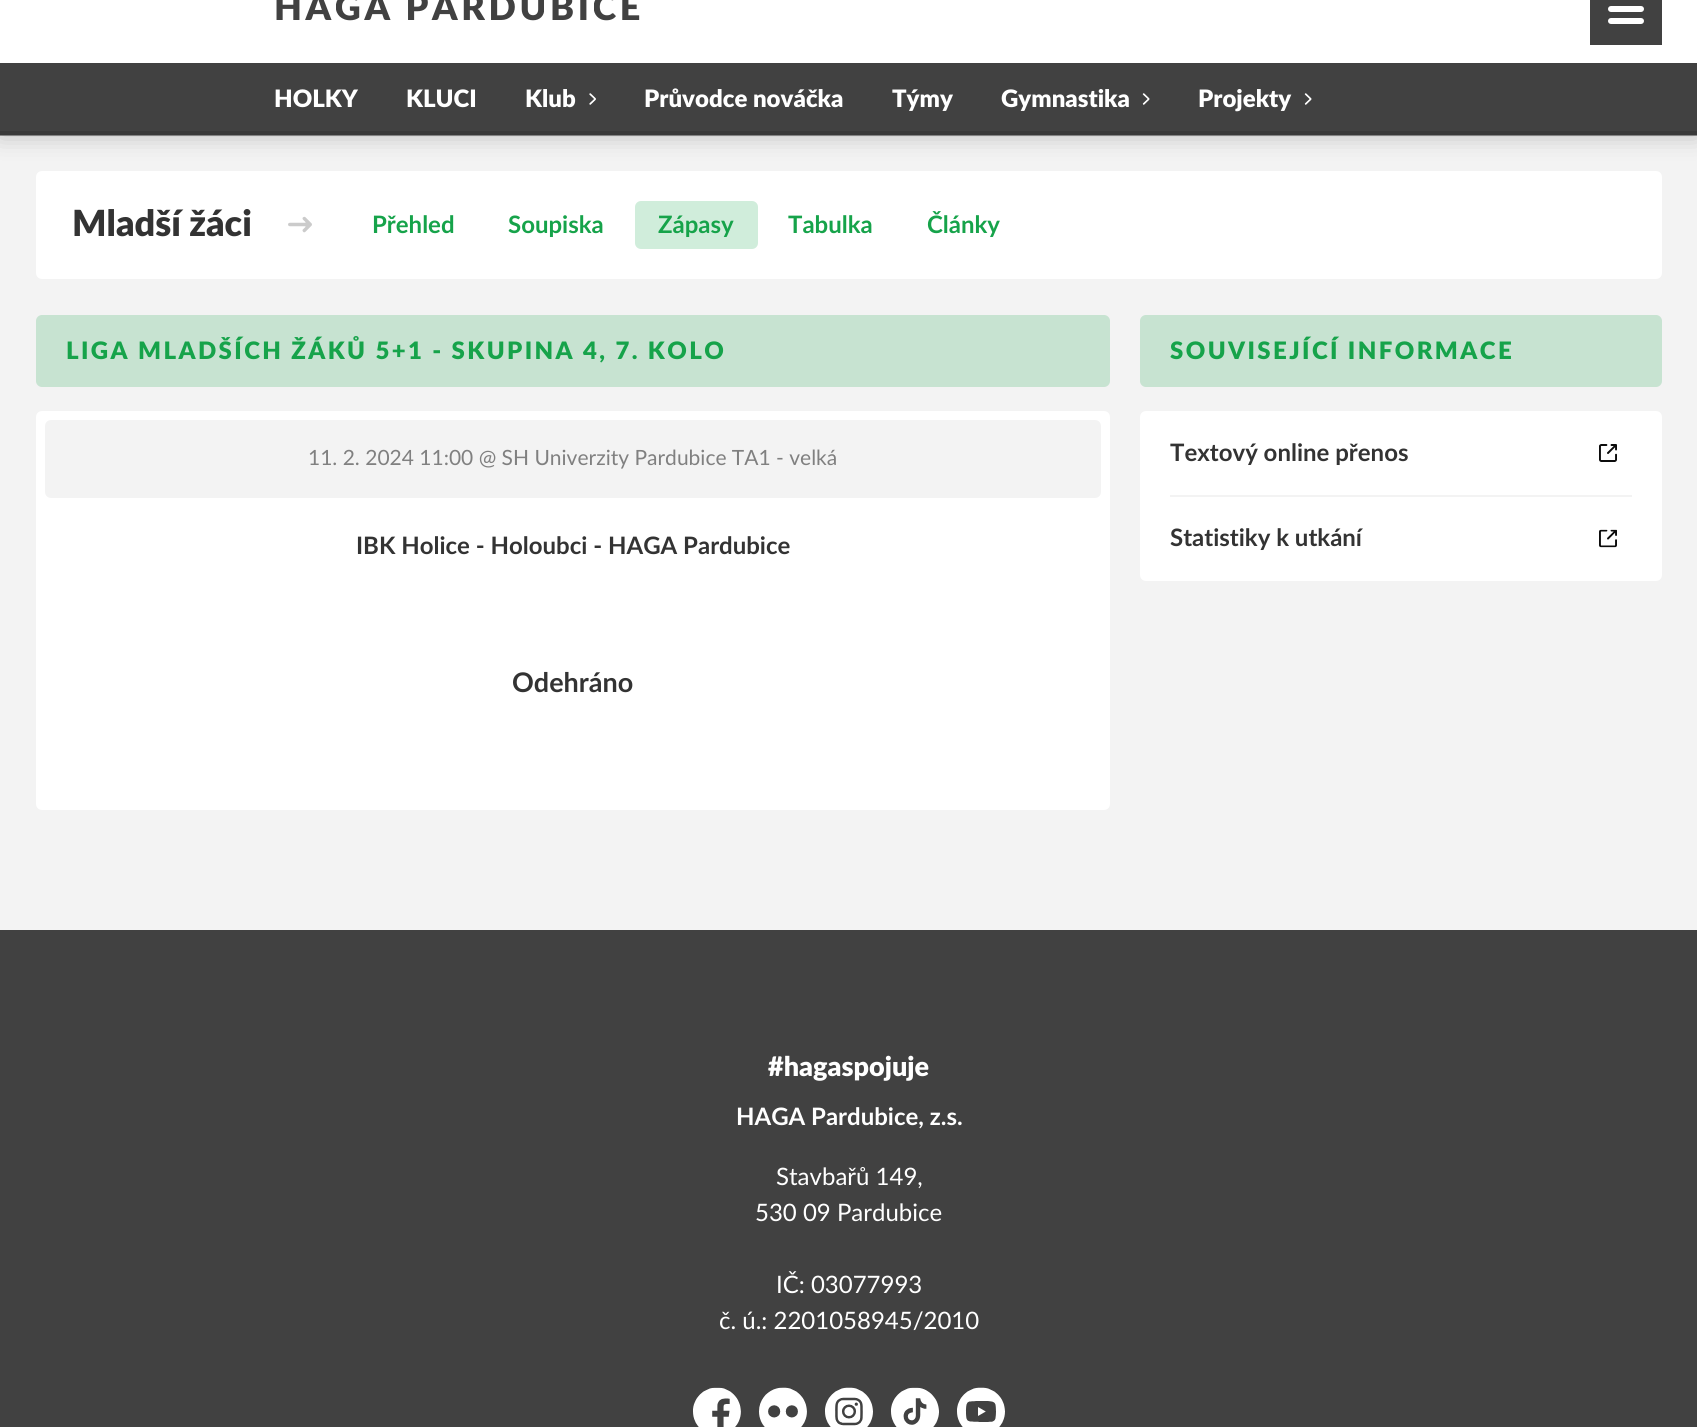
import math
import cairo

surface = cairo.ImageSurface(cairo.Format.RGB24, 1697, 1427)
ctx = cairo.Context(surface)
options = cairo.FontOptions()
options.set_hint_metrics(cairo.HintMetrics.OFF)
options.set_hint_style(cairo.HintStyle.NONE)
ctx.set_font_options(options)
ctx.set_miter_limit(4)


def ink(r, g, b):
    ctx.set_source_rgb(r / 255, g / 255, b / 255)


def write(x, y, s, family, size, color, bold=False, italic=False):
    ctx.select_font_face(family, cairo.FontSlant.ITALIC if italic else cairo.FontSlant.NORMAL, cairo.FontWeight.BOLD if bold else cairo.FontWeight.NORMAL)
    ctx.set_font_size(size)
    ink(*color)
    ctx.move_to(x, y)
    ctx.show_text(s)


def write_spaced(x, y, s, letter, word):
    ctx.move_to(x, y)
    for ch in s:
        ctx.show_text(ch)
        ctx.rel_move_to(letter + word * (ch == ' '), 0)


def block(x, y, w, h, *color):
    ink(*color)
    ctx.rectangle(x, y, w, h)
    ctx.fill()


def round_path(x, y, w, h, r):
    ctx.new_sub_path()
    for i, (u, v) in enumerate([(x + w - r, y + h - r), (x + r, y + h - r), (x + r, y + r), (x + w - r, y + r)]):
        ctx.arc(u, v, r, i * math.pi / 2, (i + 1) * math.pi / 2)
    ctx.close_path()


def blur_box(x, y, w, h, r, blur, alpha):
    ctx.push_group_with_content(cairo.Content.ALPHA)
    ctx.set_operator(cairo.Operator.SOURCE)
    for i in range(15, -16, -2):
        e = blur * i / 6
        if min(w, h) + 2 * e > 0:
            ctx.set_source_rgba(0, 0, 0, alpha * math.erfc((i - 1) / 8.5) / 2)
            round_path(x - e, y - e, w + 2 * e, h + 2 * e, max(0, min(r + e + blur * .6, min(w, h) / 2 + e)))
            ctx.fill()
    ctx.mask(ctx.pop_group())


def paste(path, x, y, w, h):
    ctx.save()
    ctx.set_source_surface(cairo.ImageSurface.create_from_png(path), x, y)
    ctx.rectangle(x, y, w, h)
    ctx.fill()
    ctx.restore()


s1 = dict(family="Lato Black", size=24, color=(255, 255, 255))
s2 = dict(family="Lato Black", size=36, color=(51, 51, 51))
s3 = dict(family="Lato", size=24, color=(22, 163, 74), bold=True)
s4 = dict(family="Lato", size=21, color=(128, 128, 128))
s5 = dict(family="Lato", size=24, color=(51, 51, 51), bold=True)
s6 = dict(family="Lato", size=27, color=(51, 51, 51), bold=True)
s7 = dict(family="Lato Black", size=27, color=(255, 255, 255))
s8 = dict(family="Lato", size=24, color=(255, 255, 255), bold=True)
s9 = dict(family="Lato", size=24, color=(255, 255, 255))

ink(243, 243, 243)
ctx.paint()
ink(255, 255, 255)
round_path(36, 171, 1626, 108, 6)
ctx.fill()
ink(0, 0, 0)
blur_box(0, -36, 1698, 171, 0, 12, 0.25)
block(0, 0, 1697, 63, 255, 255, 255)
ctx.select_font_face("Lato Black")
ctx.set_font_size(36)
ink(65, 65, 65)
write_spaced(274, 20, "HAGA PARDUBICE", 3.6, 0)
block(1590, 0, 72, 45, 65, 65, 65)
ink(255, 255, 255)
round_path(1608, 6, 36, 6, 3)
ctx.fill()
round_path(1608, 18, 36, 6, 3)
ctx.fill()
block(0, 63, 1697, 72, 65, 65, 65)
write(274, 107, "HOLKY", **s1)
write(406, 107, "KLUCI", **s1)
write(525, 107, "Klub", **s1)
paste("pic1.png", 589, 93, 7, 12)
write(644, 107, "Průvodce nováčka", **s1)
write(892, 107, "Týmy", **s1)
write(1001, 107, "Gymnastika", **s1)
paste("pic2.png", 1142, 93, 8, 12)
write(1198, 107, "Projekty", **s1)
paste("pic2.png", 1304, 93, 8, 12)
ctx.set_source_rgba(0.2, 0.2, 0.2, 0.5)
ctx.rectangle(0, 131, 1697, 5)
ctx.fill()
write(72, 236, "Mladší žáci", **s2)
paste("pic3.png", 288, 216, 24, 17)
write(372, 233, "Přehled", **s3)
write(508, 233, "Soupiska", **s3)
ink(208, 237, 219)
round_path(635, 201, 123, 48, 6)
ctx.fill()
write(658, 233, "Zápasy", **s3)
write(788, 233, "Tabulka", **s3)
write(927, 233, "Články", **s3)
ink(199, 227, 209)
round_path(36, 315, 1074, 72, 6)
ctx.fill()
ctx.select_font_face("Lato Black")
ink(22, 163, 74)
write_spaced(66, 359, "LIGA MLADŠÍCH ŽÁKŮ 5+1 - SKUPINA 4, 7. KOLO", 2.4, 0)
ink(255, 255, 255)
round_path(36, 411, 1074, 399, 6)
ctx.fill()
ink(243, 243, 243)
round_path(45, 420, 1056, 78, 6)
ctx.fill()
write(308, 465, "11. 2. 2024 11:00 @ SH Univerzity Pardubice TA1 - velká", **s4)
write(356, 554, "IBK Holice - Holoubci - HAGA Pardubice", **s5)
write(512, 692, "Odehráno", **s6)
ink(199, 227, 209)
round_path(1140, 315, 522, 72, 6)
ctx.fill()
ctx.select_font_face("Lato Black")
ctx.set_font_size(24)
ink(22, 163, 74)
write_spaced(1170, 359, "SOUVISEJÍCÍ INFORMACE", 2.4, 0)
ink(255, 255, 255)
round_path(1140, 411, 522, 170, 6)
ctx.fill()
write(1170, 461, "Textový online přenos", **s5)
paste("pic4.png", 1599, 444, 18, 18)
block(1170, 495, 462, 2, 243, 243, 243)
write(1170, 546, "Statistiky k utkání", **s5)
paste("pic5.png", 1599, 529, 18, 19)
block(0, 930, 1697, 497, 65, 65, 65)
write(768, 1076, "#hagaspojuje", **s7)
write(736, 1125, "HAGA Pardubice, z.s.", **s8)
write(776, 1185, "Stavbařů 149,", **s9)
write(755, 1221, "530 09 Pardubice", **s9)
write(776, 1293, "IČ: 03077993", **s9)
write(719, 1329, "č. ú.: 2201058945/2010", **s9)
paste("pic6.png", 693, 1387, 48, 40)
paste("pic7.png", 759, 1387, 48, 40)
paste("pic8.png", 825, 1387, 48, 40)
paste("pic9.png", 891, 1387, 48, 40)
paste("pic10.png", 957, 1387, 48, 40)
surface.write_to_png("screenshot.png")
